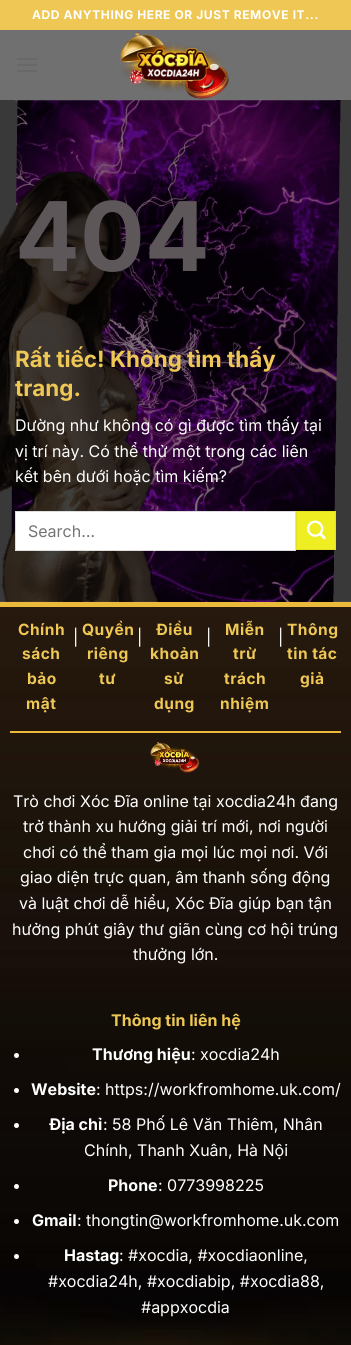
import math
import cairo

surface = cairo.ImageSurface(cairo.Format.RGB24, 351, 1345)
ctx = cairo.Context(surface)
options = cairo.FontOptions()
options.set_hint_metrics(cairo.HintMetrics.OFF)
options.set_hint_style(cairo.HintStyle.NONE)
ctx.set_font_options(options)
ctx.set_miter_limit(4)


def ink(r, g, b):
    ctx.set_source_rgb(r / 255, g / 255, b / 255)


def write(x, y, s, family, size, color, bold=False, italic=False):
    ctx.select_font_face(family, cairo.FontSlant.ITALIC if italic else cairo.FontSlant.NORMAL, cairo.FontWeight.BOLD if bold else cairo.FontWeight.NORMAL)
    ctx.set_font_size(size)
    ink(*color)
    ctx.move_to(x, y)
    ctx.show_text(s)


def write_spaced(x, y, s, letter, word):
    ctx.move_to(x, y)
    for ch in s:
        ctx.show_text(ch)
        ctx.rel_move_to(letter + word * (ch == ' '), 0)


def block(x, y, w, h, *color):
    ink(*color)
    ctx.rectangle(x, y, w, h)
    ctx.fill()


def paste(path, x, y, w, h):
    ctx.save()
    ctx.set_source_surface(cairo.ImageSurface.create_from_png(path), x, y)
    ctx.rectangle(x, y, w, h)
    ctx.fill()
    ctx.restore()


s1 = dict(family="Inter", size=96, color=(93, 87, 90), bold=True)
s2 = dict(family="Inter", size=22.4, color=(238, 199, 85), bold=True)
s3 = dict(family="Inter", size=16, color=(255, 255, 255))
s4 = dict(family="Inter", size=16, color=(117, 117, 117))
s5 = dict(family="Inter", size=16, color=(238, 199, 85), bold=True)
s6 = dict(family="Inter", size=16, color=(255, 255, 255), bold=True)

ink(255, 255, 255)
ctx.paint()
block(0, 0, 351, 30, 238, 199, 85)
ctx.select_font_face("Inter", cairo.FontSlant.NORMAL, cairo.FontWeight.BOLD)
ctx.set_font_size(12)
ink(255, 255, 255)
write_spaced(32, 19, "ADD ANYTHING HERE OR JUST REMOVE IT...", 0.6, 0)
block(0, 30, 351, 70, 112, 112, 112)
paste("pic1.png", 17, 58, 20, 14)
paste("pic2.png", 120, 32, 109, 67)
paste("pic3.png", 0, 100, 351, 502)
ctx.set_source_rgba(1, 1, 1, 0.1)
ctx.rectangle(15, 100, 321, 1)
ctx.fill()
write(15, 271, "404", **s1)
write(15, 367, "Rất tiếc! Không tìm thấy", **s2)
write(15, 396, "trang.", **s2)
write(15, 431, "Dường như không có gì được tìm thấy tại", **s3)
write(15, 457, "vị trí này. Có thể thử một trong các liên", **s3)
write(15, 482, "kết bên dưới hoặc tìm kiếm?", **s3)
ctx.rectangle(15.5, 511.5, 280, 39)
ctx.fill_preserve()
ink(221, 221, 221)
ctx.set_line_width(1)
ctx.stroke()
write(28, 537, "Search…", **s4)
ink(238, 238, 34)
ctx.rectangle(296.5, 511.5, 39, 38)
ctx.fill_preserve()
ink(226, 226, 32)
ctx.stroke()
paste("pic4.png", 307, 520, 19, 20)
block(0, 602, 351, 5, 235, 186, 58)
paste("pic5.png", 0, 607, 351, 738)
ctx.select_font_face("Inter", cairo.FontSlant.NORMAL, cairo.FontWeight.BOLD)
ctx.set_font_size(15.5)
ink(238, 199, 85)
write_spaced(18, 635, "Chính", 0.5, 0)
write_spaced(22, 659, "sách", 0.5, 0)
write_spaced(27, 684, "bảo", 0.5, 0)
write_spaced(26, 709, "mật", 0.5, 0)
write(73, 643, "|", **s3)
ctx.select_font_face("Inter", cairo.FontSlant.NORMAL, cairo.FontWeight.BOLD)
ctx.set_font_size(15.5)
ink(238, 199, 85)
write_spaced(82, 635, "Quyền", 0.5, 0)
write_spaced(87, 659, "riêng", 0.5, 0)
write_spaced(99, 684, "tư", 0.5, 0)
write(137, 643, "|", **s3)
ctx.select_font_face("Inter", cairo.FontSlant.NORMAL, cairo.FontWeight.BOLD)
ctx.set_font_size(15.5)
ink(238, 199, 85)
write_spaced(156, 635, "Điều", 0.5, 0)
write_spaced(150, 659, "khoản", 0.5, 0)
write_spaced(164, 684, "sử", 0.5, 0)
write_spaced(154, 709, "dụng", 0.5, 0)
write(206, 643, "|", **s3)
ctx.select_font_face("Inter", cairo.FontSlant.NORMAL, cairo.FontWeight.BOLD)
ctx.set_font_size(15.5)
ink(238, 199, 85)
write_spaced(225, 635, "Miễn", 0.5, 0)
write_spaced(233, 659, "trừ", 0.5, 0)
write_spaced(224, 684, "trách", 0.5, 0)
write_spaced(220, 709, "nhiệm", 0.5, 0)
write(278, 643, "|", **s3)
ctx.select_font_face("Inter", cairo.FontSlant.NORMAL, cairo.FontWeight.BOLD)
ctx.set_font_size(15.5)
ink(238, 199, 85)
write_spaced(287, 635, "Thông", 0.5, 0)
write_spaced(287, 659, "tin tác", 0.5, 0)
write_spaced(300, 684, "giả", 0.5, 0)
block(10, 731, 331, 2, 235, 186, 58)
paste("pic6.png", 150, 742, 50, 31)
write(13, 807, "Trò chơi Xóc Đĩa online tại xocdia24h đang", **s3)
write(23, 832, "trở thành xu hướng giải trí mới, nơi người", **s3)
write(23, 858, "chơi có thể tham gia mọi lúc mọi nơi. Với", **s3)
write(20, 883, "giao diện trực quan, âm thanh sống động", **s3)
write(19, 909, "và luật chơi dễ hiểu, Xóc Đĩa giúp bạn tận", **s3)
write(12, 935, "hưởng phút giây thư giãn cùng cơ hội trúng", **s3)
write(133, 960, "thưởng lớn.", **s3)
write(111, 1026, "Thông tin liên hệ", **s5)
ink(255, 255, 255)
ctx.new_path()
ctx.arc(16.5, 1055.5, 2.5, 0, 2 * math.pi)
ctx.fill()
write(92, 1060, "Thương hiệu", **s6)
write(191, 1060, ": xocdia24h", **s3)
ctx.new_path()
ctx.arc(16.5, 1090.5, 2.5, 0, 2 * math.pi)
ctx.fill()
write(31, 1095, "Website", **s6)
write(96, 1095, ": https://workfromhome.uk.com/", **s3)
ctx.new_path()
ctx.arc(16.5, 1125.5, 2.5, 0, 2 * math.pi)
ctx.fill()
write(49, 1130, "Địa chỉ", **s6)
write(103, 1130, ": 58 Phố Lê Văn Thiêm, Nhân", **s3)
write(84, 1156, "Chính, Thanh Xuân, Hà Nội", **s3)
ctx.new_path()
ctx.arc(16.5, 1186.5, 2.5, 0, 2 * math.pi)
ctx.fill()
write(108, 1191, "Phone", **s6)
write(158, 1191, ": 0773998225", **s3)
ctx.new_path()
ctx.arc(16.5, 1221.5, 2.5, 0, 2 * math.pi)
ctx.fill()
write(32, 1226, "Gmail", **s6)
write(77, 1226, ": thongtin@workfromhome.uk.com", **s3)
ctx.new_path()
ctx.arc(16.5, 1256.5, 2.5, 0, 2 * math.pi)
ctx.fill()
write(64, 1261, "Hastag", **s6)
write(119, 1261, ": #xocdia, #xocdiaonline,", **s3)
write(48, 1287, "#xocdia24h, #xocdiabip, #xocdia88,", **s3)
write(141, 1313, "#appxocdia", **s3)
surface.write_to_png("screenshot.png")
